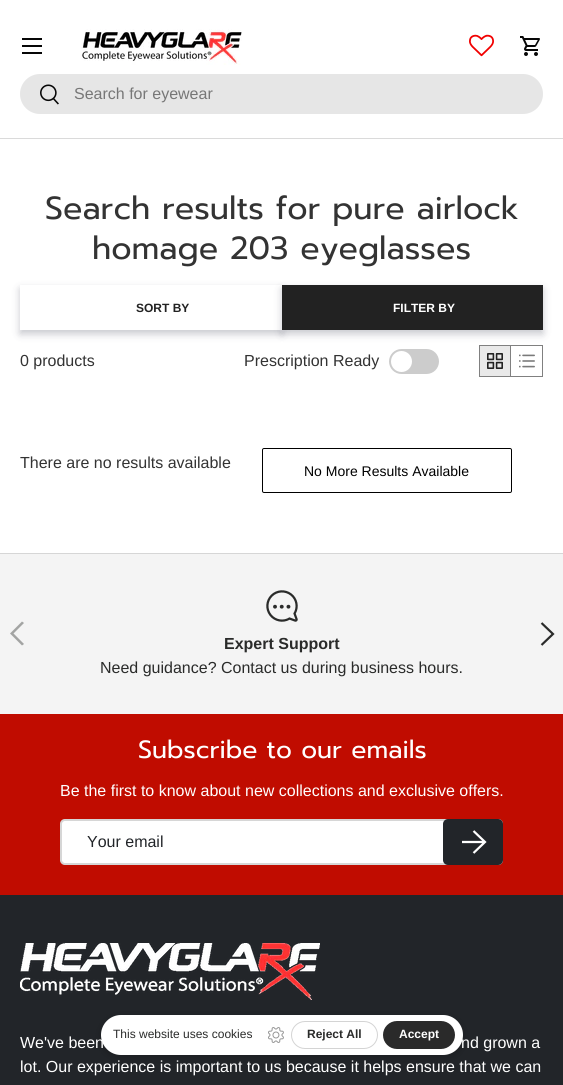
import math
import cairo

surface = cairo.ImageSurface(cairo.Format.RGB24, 563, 1085)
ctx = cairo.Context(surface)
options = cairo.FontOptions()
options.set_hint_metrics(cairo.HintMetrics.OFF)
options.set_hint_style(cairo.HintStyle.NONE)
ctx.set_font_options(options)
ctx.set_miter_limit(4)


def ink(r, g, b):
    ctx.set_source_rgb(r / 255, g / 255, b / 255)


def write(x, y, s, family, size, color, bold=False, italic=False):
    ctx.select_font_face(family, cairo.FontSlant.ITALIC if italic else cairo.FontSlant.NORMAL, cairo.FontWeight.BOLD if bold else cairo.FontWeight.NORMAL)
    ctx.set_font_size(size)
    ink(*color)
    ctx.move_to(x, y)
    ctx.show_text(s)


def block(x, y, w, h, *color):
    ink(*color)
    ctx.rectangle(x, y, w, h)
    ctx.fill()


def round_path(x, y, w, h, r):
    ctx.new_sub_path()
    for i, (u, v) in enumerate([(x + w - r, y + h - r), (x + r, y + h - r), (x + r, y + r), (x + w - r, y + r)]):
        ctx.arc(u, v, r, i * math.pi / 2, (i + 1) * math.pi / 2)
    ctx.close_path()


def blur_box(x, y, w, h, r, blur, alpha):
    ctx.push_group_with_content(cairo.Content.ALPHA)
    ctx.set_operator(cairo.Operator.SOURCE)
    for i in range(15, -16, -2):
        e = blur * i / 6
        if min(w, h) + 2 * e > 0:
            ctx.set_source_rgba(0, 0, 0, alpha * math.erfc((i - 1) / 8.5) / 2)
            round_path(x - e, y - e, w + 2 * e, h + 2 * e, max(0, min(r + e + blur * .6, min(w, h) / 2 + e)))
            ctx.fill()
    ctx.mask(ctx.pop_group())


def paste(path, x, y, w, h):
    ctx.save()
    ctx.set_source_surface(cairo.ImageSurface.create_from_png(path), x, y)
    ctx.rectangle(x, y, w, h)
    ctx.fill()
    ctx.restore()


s1 = dict(family="Liberation Sans", size=16, color=(119, 119, 119))
s2 = dict(family="Prompt", size=32, color=(51, 51, 51))
s3 = dict(family="Liberation Sans", size=12, color=(34, 34, 34), bold=True)
s4 = dict(family="Liberation Sans", size=12, color=(255, 255, 255), bold=True)
s5 = dict(family="Liberation Sans", size=16, color=(51, 51, 51))
s6 = dict(family="Liberation Sans", size=14, color=(0, 0, 0))
s7 = dict(family="Liberation Sans", size=16, color=(42, 43, 42), bold=True)
s8 = dict(family="Liberation Sans", size=16, color=(42, 43, 42))
s9 = dict(family="Prompt", size=25, color=(255, 255, 255))
s10 = dict(family="Liberation Sans", size=16, color=(255, 255, 255))
s11 = dict(family="Liberation Sans", size=16, color=(34, 37, 41))
s12 = dict(family="Liberation Sans", size=12, color=(42, 43, 42))
s13 = dict(family="Liberation Sans", size=12, color=(42, 43, 42), bold=True)

ink(255, 255, 255)
ctx.paint()
block(0, 138, 563, 1, 218, 218, 218)
block(22, 38, 20, 2, 7, 7, 7)
block(22, 52, 20, 2, 7, 7, 7)
block(22, 45, 20, 2, 7, 7, 7)
paste("pic1.png", 81, 29, 161, 36)
paste("pic2.png", 469, 34, 25, 23)
paste("pic3.png", 520, 36, 20, 20)
ink(230, 230, 230)
round_path(20, 74, 523, 40, 20)
ctx.fill()
paste("pic4.png", 40, 84, 19, 21)
write(74, 99, "Search for eyewear", **s1)
write(45, 219, "Search results for pure airlock", **s2)
write(92, 259, "homage 203 eyeglasses", **s2)
ctx.save()
ctx.set_fill_rule(cairo.FillRule.EVEN_ODD)
ctx.new_path()
ctx.move_to(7, 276)
ctx.line_to(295, 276)
ctx.line_to(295, 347)
ctx.line_to(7, 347)
ctx.close_path()
ctx.move_to(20, 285)
ctx.line_to(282, 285)
ctx.line_to(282, 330)
ctx.line_to(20, 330)
ctx.close_path()
ctx.clip()
ink(35, 38, 59)
blur_box(20, 289, 262, 45, 0, 4, 0.25)
ctx.restore()
write(136, 312, "SORT BY", **s3)
ink(233, 233, 233)
ctx.rectangle(479.5, 345.5, 31, 31)
ctx.fill_preserve()
ink(128, 128, 128)
ctx.set_line_width(1)
ctx.stroke()
block(511, 345, 32, 1, 128, 128, 128)
block(542, 345, 1, 32, 128, 128, 128)
ink(35, 38, 59)
blur_box(282, 289, 261, 45, 0, 4, 0.25)
block(282, 285, 261, 45, 34, 34, 34)
write(393, 312, "FILTER BY", **s4)
write(20, 366, "0 products", **s5)
write(244, 366, "Prescription Ready", **s5)
ink(204, 204, 204)
round_path(389, 349, 50, 25, 12.5)
ctx.fill()
ink(255, 255, 255)
ctx.arc(401.5, 361.5, 10.5, 0, 2 * math.pi)
ctx.fill()
paste("pic5.png", 487, 353, 16, 16)
block(511, 376, 32, 1, 128, 128, 128)
paste("pic6.png", 519, 354, 16, 14)
write(20, 468, "There are no results available", **s5)
round_path(262.5, 448.5, 249, 44, 1.5)
ink(0, 0, 0)
ctx.stroke()
write(304, 476, "No More Results Available", **s6)
block(0, 554, 563, 160, 244, 244, 244)
block(0, 553, 563, 1, 214, 214, 214)
ink(163, 164, 163)
ctx.new_path()
ctx.move_to(10, 633.5)
ctx.line_to(22, 621.5)
ctx.line_to(24, 623)
ctx.line_to(13.5, 633.5)
ctx.line_to(24, 644)
ctx.line_to(22, 645.5)
ctx.close_path()
ctx.fill()
ctx.new_path()
ctx.move_to(541.5, 623)
ctx.line_to(553, 634)
ctx.line_to(541.5, 645)
ink(42, 43, 42)
ctx.set_line_width(2.2)
ctx.stroke()
paste("pic7.png", 266, 590, 32, 32)
write(224, 649, "Expert Support", **s7)
write(100, 673, "Need guidance? Contact us during business hours.", **s8)
block(0, 714, 563, 181, 192, 12, 0)
write(138, 758, "Subscribe to our emails", **s9)
write(60, 796, "Be the first to know about new collections and exclusive offers.", **s10)
round_path(60, 819, 443, 46, 5)
ctx.fill()
round_path(61, 820, 441, 44, 4)
ctx.set_source_rgba(0.2, 0.2, 0.2, 0.2)
ctx.set_line_width(2)
ctx.stroke()
write(87, 847, "Your email", **s11)
round_path(443, 819, 60, 46, 5)
ctx.fill()
ctx.new_path()
ctx.move_to(462, 842)
ctx.line_to(484, 842)
ctx.move_to(473.5, 831)
ctx.line_to(485, 842)
ctx.line_to(473.5, 853)
ink(255, 255, 255)
ctx.set_line_width(2.2)
ctx.stroke()
block(0, 895, 563, 190, 34, 37, 41)
ink(0, 0, 0)
blur_box(101, 1017, 362, 40, 20, 4, 0.2)
ink(255, 255, 255)
round_path(101, 1015, 362, 40, 20)
ctx.fill()
write(113, 1038, "This website uses cookies", **s12)
paste("pic8.png", 268, 1027, 16, 16)
round_path(291.5, 1021.5, 86, 27, 13.5)
ink(212, 212, 212)
ctx.set_line_width(1)
ctx.stroke()
write(307, 1038, "Reject All", **s13)
ink(42, 42, 42)
round_path(383, 1021, 72, 28, 14)
ctx.fill()
write(399, 1038, "Accept", **s4)
paste("pic9.png", 20, 943, 300, 57)
write(20, 1048, "We've been", **s10)
write(461, 1048, "nd grown a", **s10)
write(20, 1072, "lot. Our experience is important to us because it helps ensure that we can", **s10)
surface.write_to_png("screenshot.png")
